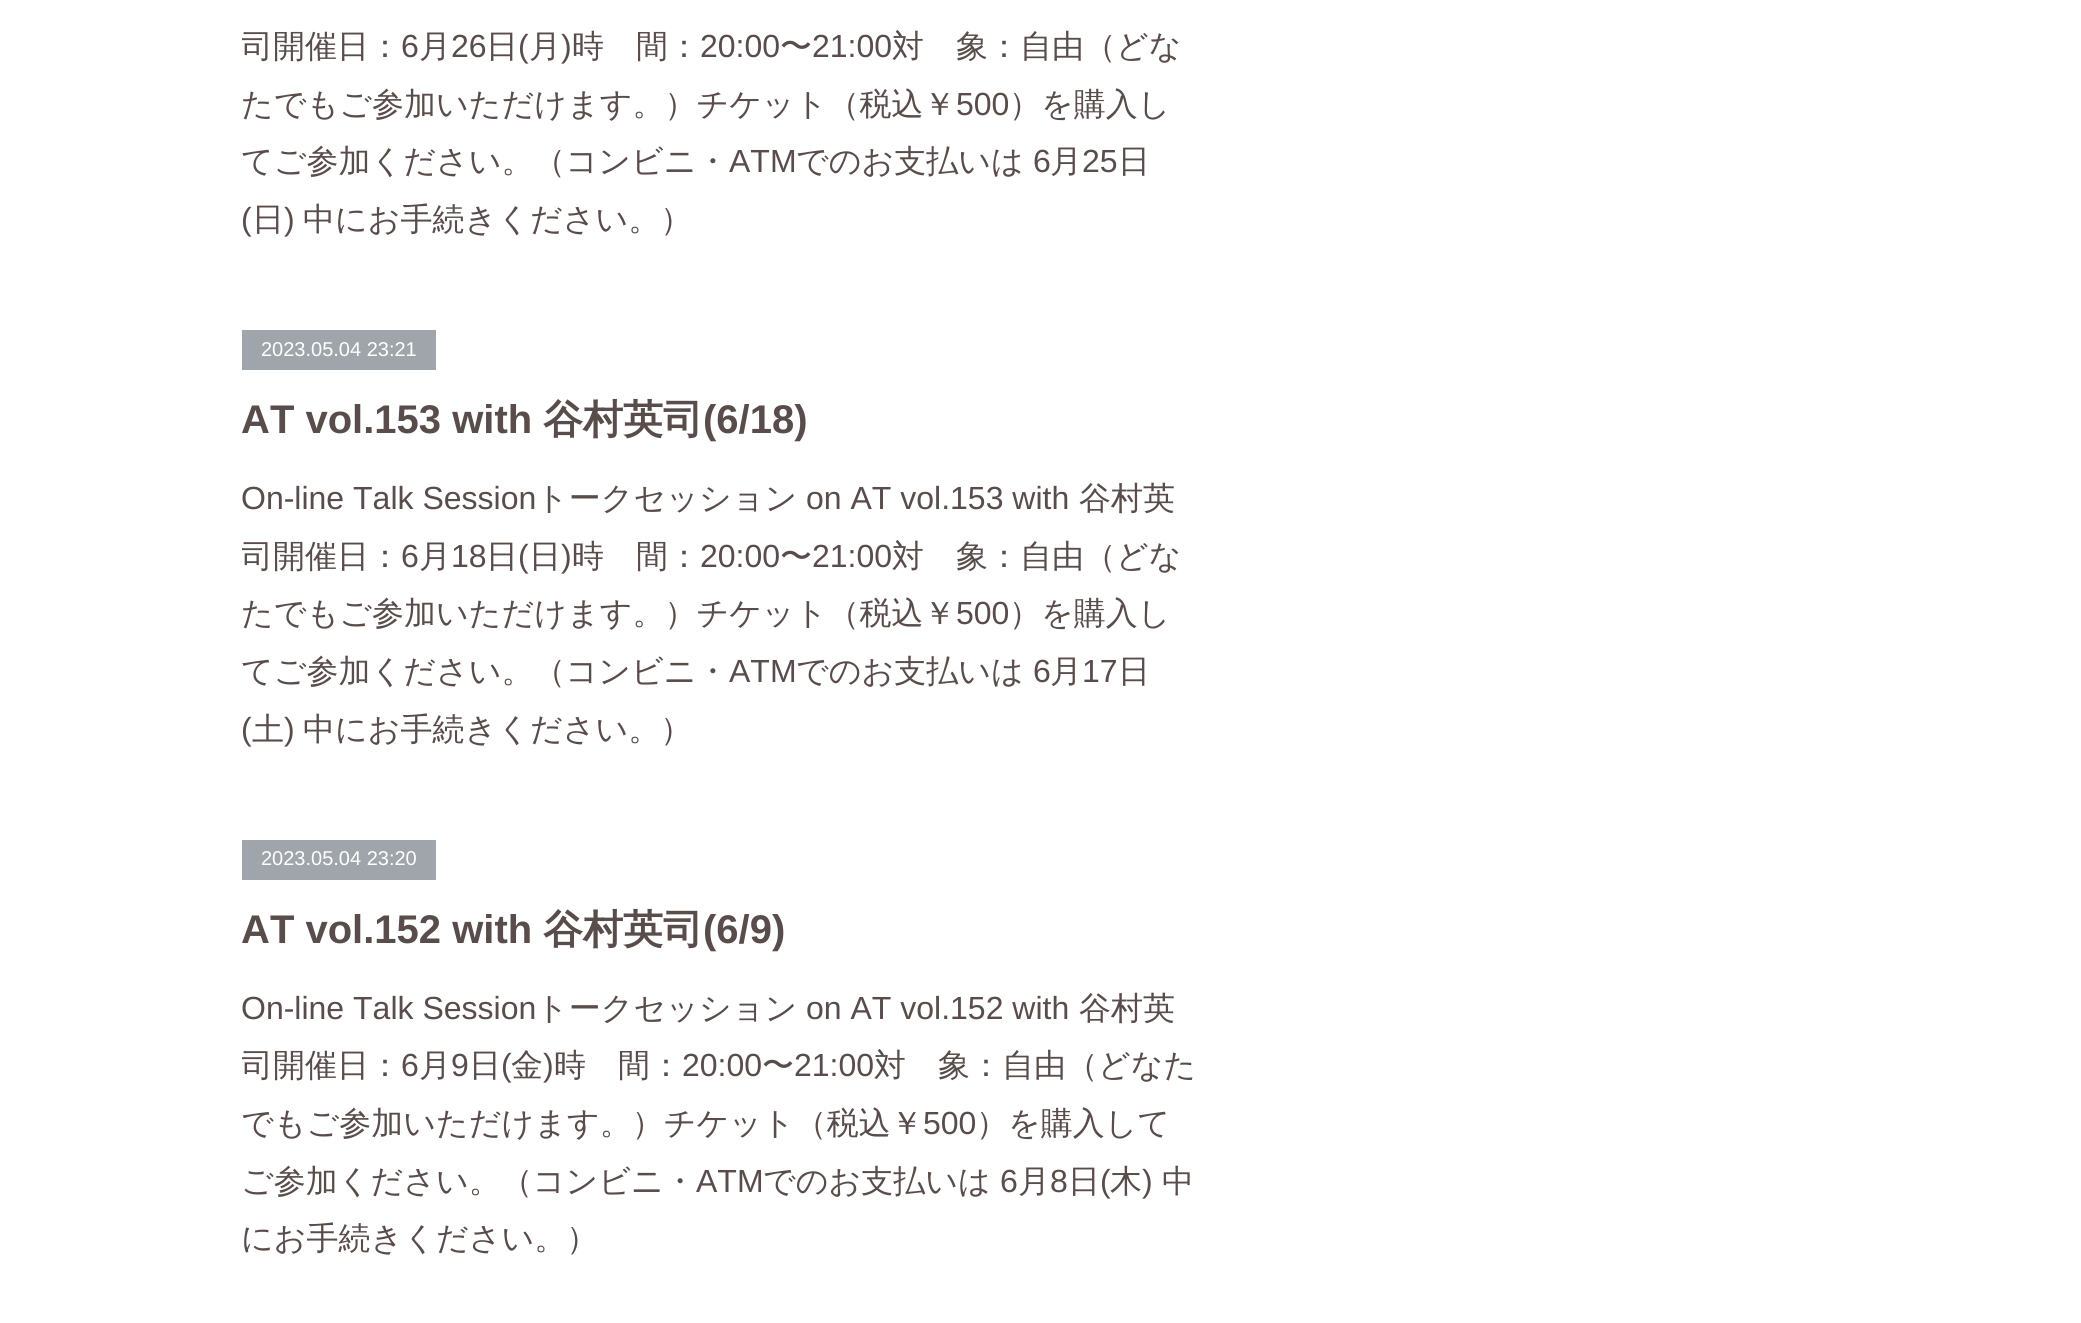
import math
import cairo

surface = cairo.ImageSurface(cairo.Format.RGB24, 2081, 1323)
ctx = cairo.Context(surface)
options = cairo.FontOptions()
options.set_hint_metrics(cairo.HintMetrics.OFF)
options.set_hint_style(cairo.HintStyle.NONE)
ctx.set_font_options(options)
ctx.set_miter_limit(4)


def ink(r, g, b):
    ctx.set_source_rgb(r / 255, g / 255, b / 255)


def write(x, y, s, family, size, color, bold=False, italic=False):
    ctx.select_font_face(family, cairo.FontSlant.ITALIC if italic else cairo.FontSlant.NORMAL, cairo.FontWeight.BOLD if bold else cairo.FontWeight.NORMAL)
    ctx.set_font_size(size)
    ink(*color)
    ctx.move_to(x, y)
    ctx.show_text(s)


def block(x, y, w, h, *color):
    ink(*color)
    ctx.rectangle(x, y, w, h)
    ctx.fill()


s1 = dict(family="WenQuanYi Zen Hei Medium", size=32, color=(89, 77, 75))
s2 = dict(family="Liberation Sans", size=32, color=(89, 77, 75))
s3 = dict(family="Liberation Sans", size=20, color=(255, 255, 255))
s4 = dict(family="Liberation Sans", size=40, color=(89, 77, 75), bold=True)
s5 = dict(family="WenQuanYi Zen Hei", size=40, color=(89, 77, 75), bold=True)

ink(255, 255, 255)
ctx.paint()
ctx.save()
ctx.rectangle(242, 0, 1040, 250)
ctx.clip()
write(241, 57, "司開催日：", **s1)
ctx.restore()
write(401, 57, "6", **s2)
write(419, 57, "月", **s1)
write(451, 57, "26", **s2)
write(486, 57, "日", **s1)
write(518, 57, "(", **s2)
write(529, 57, "月", **s1)
write(561, 57, ")", **s2)
write(572, 57, "時　間：", **s1)
write(700, 57, "20:00", **s2)
write(780, 57, "〜", **s1)
write(812, 57, "21:00", **s2)
write(892, 57, "対　象：自由（どな", **s1)
write(241, 115, "たでもご参加いただけます。）チケット（税込￥", **s1)
write(956, 115, "500", **s2)
write(1009, 115, "）を購入し", **s1)
write(241, 172, "てご参加ください。（コンビニ・", **s1)
write(729, 172, "ATM", **s2)
write(796, 172, "でのお支払いは", **s1)
write(1033, 172, "6", **s2)
write(1050, 172, "月", **s1)
write(1082, 172, "25", **s2)
write(1118, 172, "日", **s1)
write(241, 230, "(", **s2)
write(252, 230, "日", **s1)
write(284, 230, ")", **s2)
write(303, 230, "中にお手続きください。）", **s1)
block(242, 330, 194, 40, 159, 165, 170)
write(261, 356, "2023.05.04 23:21", **s3)
write(241, 433, "AT vol.153 with", **s4)
write(543, 433, "谷村英司", **s5)
write(703, 433, "(6/18)", **s4)
write(241, 509, "On-line Talk Session", **s2)
write(536, 509, "トークセッション", **s1)
write(806, 509, "on AT vol.153 with", **s2)
write(1079, 509, "谷村英", **s1)
ctx.save()
ctx.rectangle(242, 330, 1040, 430)
ctx.clip()
write(241, 567, "司開催日：", **s1)
ctx.restore()
write(401, 567, "6", **s2)
write(419, 567, "月", **s1)
write(451, 567, "18", **s2)
write(486, 567, "日", **s1)
write(518, 567, "(", **s2)
write(529, 567, "日", **s1)
write(561, 567, ")", **s2)
write(572, 567, "時　間：", **s1)
write(700, 567, "20:00", **s2)
write(780, 567, "〜", **s1)
write(812, 567, "21:00", **s2)
write(892, 567, "対　象：自由（どな", **s1)
write(241, 624, "たでもご参加いただけます。）チケット（税込￥", **s1)
write(956, 624, "500", **s2)
write(1009, 624, "）を購入し", **s1)
write(241, 682, "てご参加ください。（コンビニ・", **s1)
write(729, 682, "ATM", **s2)
write(796, 682, "でのお支払いは", **s1)
write(1033, 682, "6", **s2)
write(1050, 682, "月", **s1)
write(1082, 682, "17", **s2)
write(1118, 682, "日", **s1)
write(241, 740, "(", **s2)
write(252, 740, "土", **s1)
write(284, 740, ")", **s2)
write(303, 740, "中にお手続きください。）", **s1)
block(242, 840, 194, 40, 159, 165, 170)
write(261, 865, "2023.05.04 23:20", **s3)
write(241, 943, "AT vol.152 with", **s4)
write(543, 943, "谷村英司", **s5)
write(703, 943, "(6/9)", **s4)
write(241, 1019, "On-line Talk Session", **s2)
write(536, 1019, "トークセッション", **s1)
write(806, 1019, "on AT vol.152 with", **s2)
write(1079, 1019, "谷村英", **s1)
ctx.save()
ctx.rectangle(242, 840, 1040, 428)
ctx.clip()
write(241, 1076, "司開催日：", **s1)
ctx.restore()
write(401, 1076, "6", **s2)
write(419, 1076, "月", **s1)
write(451, 1076, "9", **s2)
write(469, 1076, "日", **s1)
write(501, 1076, "(", **s2)
write(511, 1076, "金", **s1)
write(543, 1076, ")", **s2)
write(554, 1076, "時　間：", **s1)
write(682, 1076, "20:00", **s2)
write(762, 1076, "〜", **s1)
write(794, 1076, "21:00", **s2)
write(874, 1076, "対　象：自由（どなた", **s1)
write(241, 1134, "でもご参加いただけます。）チケット（税込￥", **s1)
write(923, 1134, "500", **s2)
write(976, 1134, "）を購入して", **s1)
write(241, 1192, "ご参加ください。（コンビニ・", **s1)
write(696, 1192, "ATM", **s2)
write(763, 1192, "でのお支払いは", **s1)
write(1000, 1192, "6", **s2)
write(1018, 1192, "月", **s1)
write(1050, 1192, "8", **s2)
write(1068, 1192, "日", **s1)
write(1100, 1192, "(", **s2)
write(1110, 1192, "木", **s1)
write(1142, 1192, ")", **s2)
write(1162, 1192, "中", **s1)
write(241, 1249, "にお手続きください。）", **s1)
surface.write_to_png("screenshot.png")
